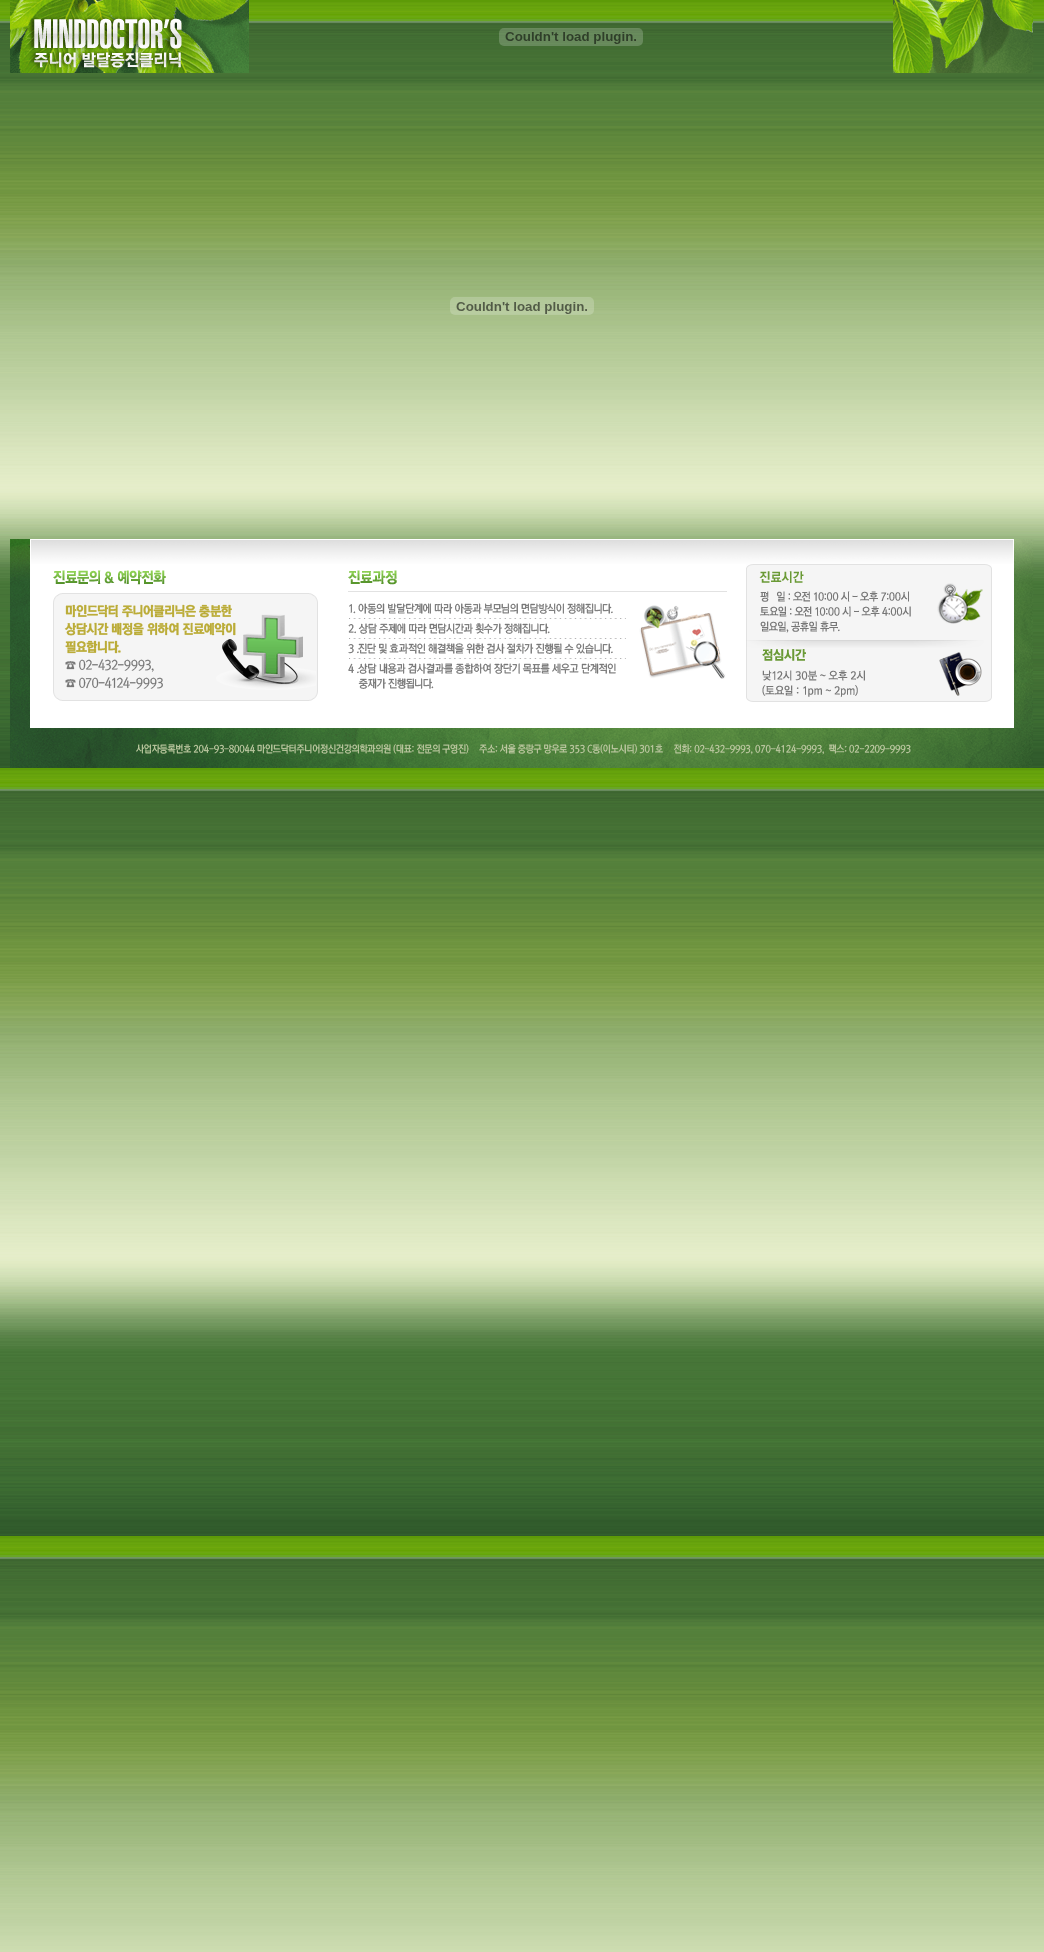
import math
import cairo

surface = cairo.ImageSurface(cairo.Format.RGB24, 1044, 1952)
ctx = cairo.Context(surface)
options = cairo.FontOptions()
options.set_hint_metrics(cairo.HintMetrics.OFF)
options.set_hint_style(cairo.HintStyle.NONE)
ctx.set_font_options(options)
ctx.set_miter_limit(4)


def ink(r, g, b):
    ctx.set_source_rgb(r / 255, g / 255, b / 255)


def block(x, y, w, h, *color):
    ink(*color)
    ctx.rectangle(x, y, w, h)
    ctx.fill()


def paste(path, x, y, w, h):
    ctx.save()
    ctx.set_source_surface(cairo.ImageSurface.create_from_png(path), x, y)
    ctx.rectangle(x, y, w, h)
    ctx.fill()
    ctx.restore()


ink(255, 255, 255)
ctx.paint()
paste("pic1.png", 0, 0, 1044, 1952)
paste("pic2.png", 10, 0, 239, 73)
paste("pic3.png", 499, 28, 144, 18)
paste("pic4.png", 893, 0, 59, 73)
paste("pic5.png", 952, 0, 82, 73)
paste("pic6.png", 450, 297, 144, 18)
block(30, 564, 984, 164, 255, 255, 255)
paste("pic7.png", 10, 539, 1024, 25)
paste("pic8.png", 10, 564, 20, 164)
paste("pic9.png", 53, 570, 113, 15)
paste("pic10.png", 53, 593, 265, 108)
paste("pic11.png", 348, 570, 379, 119)
paste("pic12.png", 746, 564, 246, 76)
paste("pic13.png", 746, 640, 246, 62)
paste("pic14.png", 1014, 564, 20, 164)
paste("pic15.png", 10, 728, 1023, 40)
surface.write_to_png("screenshot.png")
